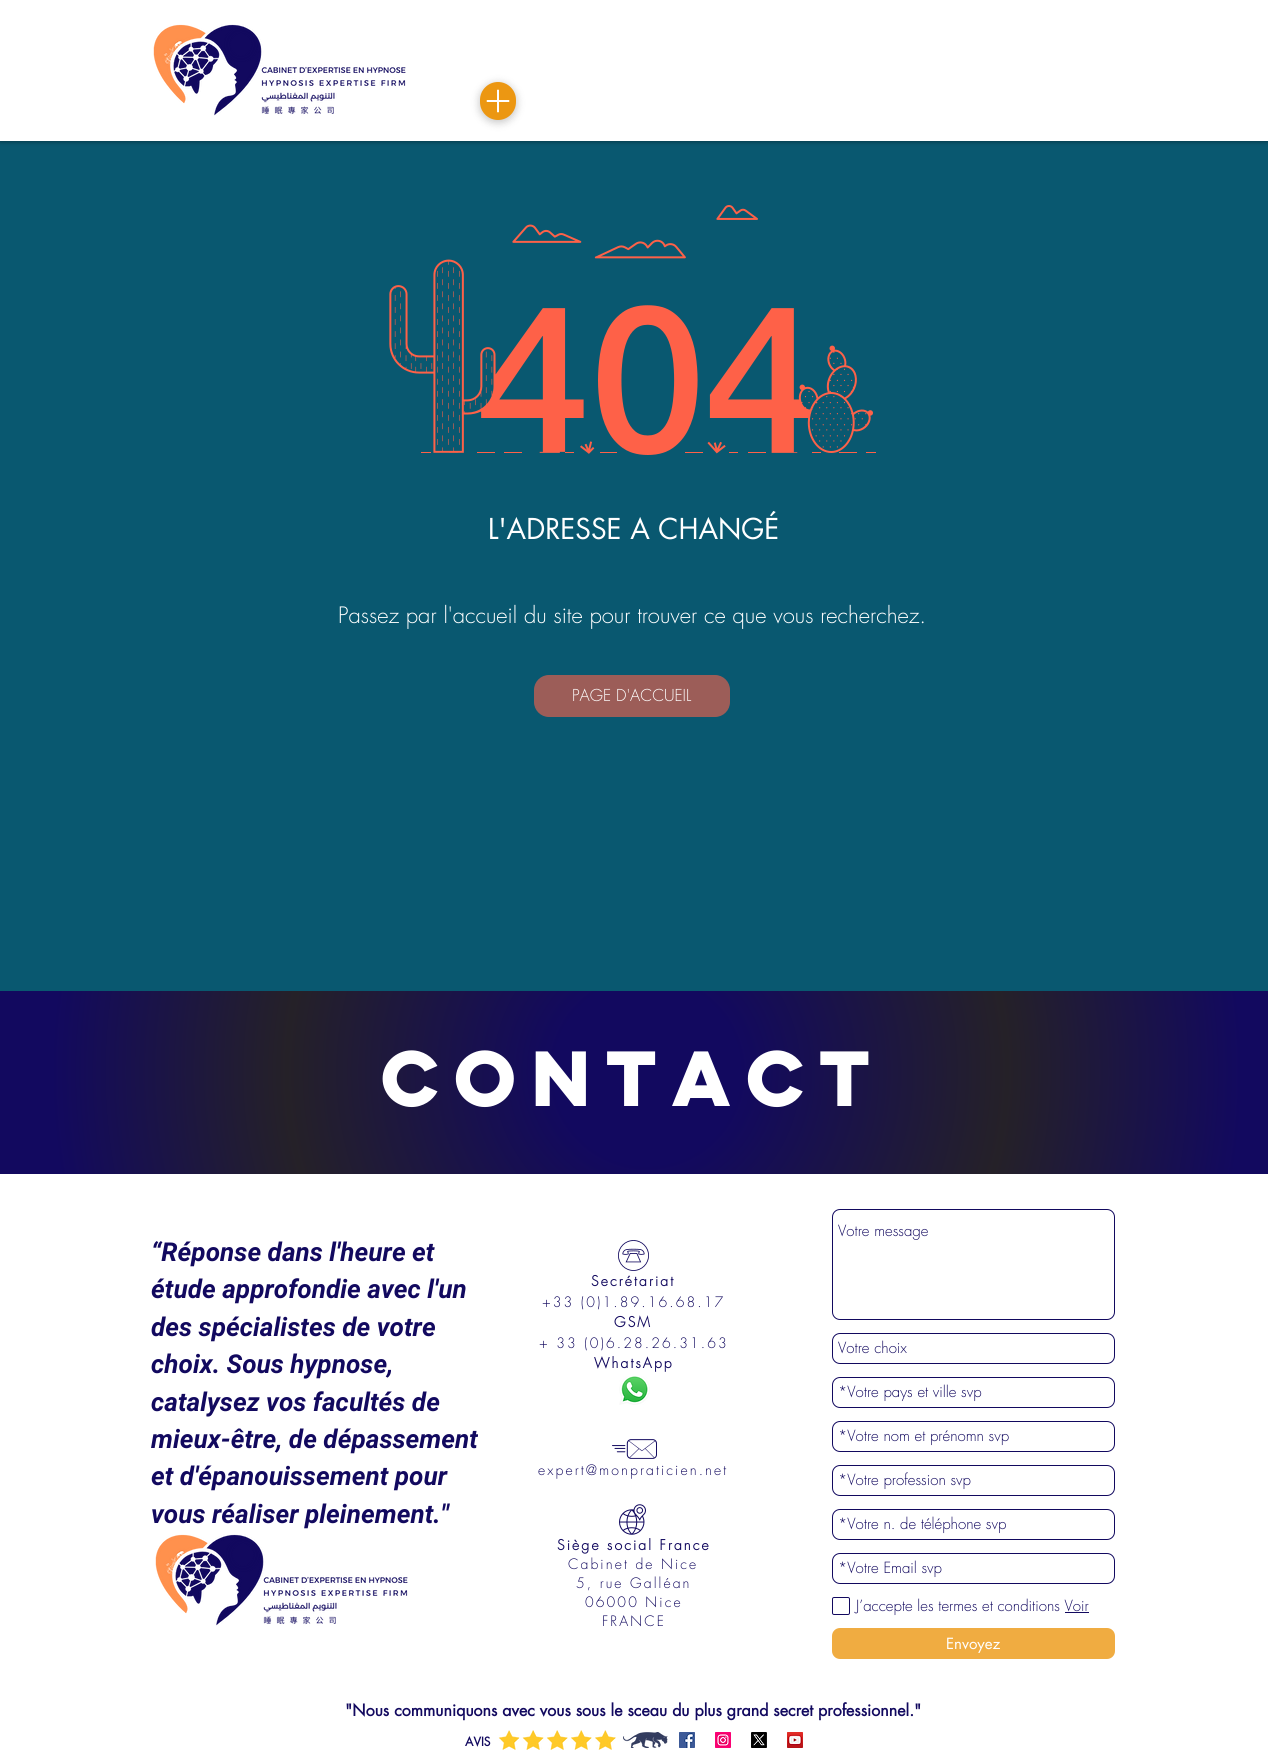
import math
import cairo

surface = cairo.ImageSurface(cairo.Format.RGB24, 1268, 1760)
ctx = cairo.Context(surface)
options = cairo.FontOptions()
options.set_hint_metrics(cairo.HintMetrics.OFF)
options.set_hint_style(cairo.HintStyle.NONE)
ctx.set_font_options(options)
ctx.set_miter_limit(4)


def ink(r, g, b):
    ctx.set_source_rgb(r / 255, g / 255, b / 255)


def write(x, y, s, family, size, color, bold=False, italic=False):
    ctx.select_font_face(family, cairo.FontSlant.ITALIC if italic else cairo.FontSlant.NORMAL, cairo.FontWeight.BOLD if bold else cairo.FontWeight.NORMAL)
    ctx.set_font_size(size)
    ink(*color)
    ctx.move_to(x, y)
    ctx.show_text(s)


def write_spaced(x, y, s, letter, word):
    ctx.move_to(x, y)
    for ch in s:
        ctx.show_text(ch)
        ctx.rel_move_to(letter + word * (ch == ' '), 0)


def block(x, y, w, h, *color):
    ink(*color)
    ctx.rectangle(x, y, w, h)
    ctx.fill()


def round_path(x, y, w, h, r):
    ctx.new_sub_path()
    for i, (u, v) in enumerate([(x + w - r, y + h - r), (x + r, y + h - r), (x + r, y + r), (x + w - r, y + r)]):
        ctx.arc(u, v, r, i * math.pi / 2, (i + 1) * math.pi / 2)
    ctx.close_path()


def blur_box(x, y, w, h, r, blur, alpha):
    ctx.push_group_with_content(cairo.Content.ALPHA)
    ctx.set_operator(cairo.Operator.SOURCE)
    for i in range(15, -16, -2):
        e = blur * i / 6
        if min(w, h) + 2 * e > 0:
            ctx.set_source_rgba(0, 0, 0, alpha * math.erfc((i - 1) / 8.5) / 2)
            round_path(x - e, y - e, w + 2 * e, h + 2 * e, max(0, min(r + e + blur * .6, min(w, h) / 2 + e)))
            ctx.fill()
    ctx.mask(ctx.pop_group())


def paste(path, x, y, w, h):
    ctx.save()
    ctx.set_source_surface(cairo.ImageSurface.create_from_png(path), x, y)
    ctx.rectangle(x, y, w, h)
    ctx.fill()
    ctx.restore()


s1 = dict(family="futura", size=28, color=(255, 255, 255))
s2 = dict(family="futura Light", size=22, color=(255, 255, 255))
s3 = dict(family="futura Light", size=16, color=(255, 255, 255))
s4 = dict(family="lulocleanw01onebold", size=70, color=(255, 255, 255), bold=True)
s5 = dict(family="Roboto", size=26, color=(18, 9, 95), bold=True, italic=True)
s6 = dict(family="futura Light", size=15, color=(18, 9, 95))
s7 = dict(family="futura", size=15, color=(255, 255, 255))
s8 = dict(family="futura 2", size=16, color=(18, 9, 95), bold=True)
s9 = dict(family="futura 2", size=12, color=(18, 9, 95), bold=True)

ink(9, 88, 112)
ctx.paint()
ink(0, 0, 0)
blur_box(0, 0, 1268, 141, 0, 2.5, 0.52)
block(0, 0, 1268, 141, 255, 255, 255)
paste("pic1.png", 153, 24, 253, 92)
ink(0, 0, 0)
blur_box(479, 83, 38, 40, 19, 4, 0.2)
ink(236, 151, 18)
round_path(480, 82, 36, 38, 18)
ctx.fill()
paste("pic2.png", 486, 89, 24, 24)
paste("pic3.png", 389, 205, 487, 250)
write(488, 539, "L'ADRESSE A CHANGÉ", **s1)
write(338, 623, "Passez par l'accueil du site pour trouver ce que vous recherchez.", **s2)
ink(156, 93, 88)
round_path(534, 675, 196, 42, 15)
ctx.fill()
write(572, 701, "PAGE D'ACCUEIL", **s3)
gradient = cairo.RadialGradient(647, 1072, 0, 647, 1072, 655)
gradient.add_color_stop_rgba(0.14, 0.071, 0.035, 0.373, 1)
gradient.add_color_stop_rgba(0.55, 0.145, 0.129, 0.157, 1)
gradient.add_color_stop_rgba(0.91, 0.071, 0.035, 0.373, 1)
ctx.set_source(gradient)
ctx.rectangle(0, 991, 1268, 183)
ctx.fill()
write(381, 1106, "CONTACT", **s4)
block(0, 1174, 1268, 586, 255, 255, 255)
write(151, 1261, "“Réponse dans l'heure et", **s5)
write(151, 1298, "étude approfondie avec l'un", **s5)
write(151, 1336, "des spécialistes de votre", **s5)
write(151, 1373, "choix. Sous hypnose,", **s5)
write(151, 1411, "catalysez vos facultés de", **s5)
write(151, 1448, "mieux-être, de dépassement", **s5)
write(151, 1485, "et d'épanouissement pour", **s5)
write(151, 1523, "vous réaliser pleinement.\"", **s5)
paste("pic4.png", 618, 1240, 31, 31)
round_path(832.5, 1209.5, 282, 110, 7.5)
ctx.set_line_width(1)
ctx.stroke()
write(838, 1236, "Votre message", **s6)
round_path(832.5, 1333.5, 282, 30, 7.5)
ctx.stroke()
write(838, 1353, "Votre choix", **s6)
round_path(832.5, 1377.5, 282, 30, 7.5)
ctx.stroke()
write(838, 1397, "*Votre pays et ville svp", **s6)
round_path(832.5, 1421.5, 282, 30, 7.5)
ctx.stroke()
write(838, 1441, "*Votre nom et prénomn svp", **s6)
round_path(832.5, 1465.5, 282, 30, 7.5)
ctx.stroke()
write(838, 1485, "*Votre profession svp", **s6)
round_path(832.5, 1509.5, 282, 30, 7.5)
ctx.stroke()
write(838, 1529, "*Votre n. de téléphone svp", **s6)
round_path(832.5, 1553.5, 282, 30, 7.5)
ctx.stroke()
write(838, 1573, "*Votre Email svp", **s6)
round_path(832.5, 1597.5, 17, 17, 1.5)
ctx.stroke()
write(856, 1611, "J’accepte les termes et conditions Voir", **s6)
block(1065, 1612, 24, 1, 18, 9, 95)
ink(240, 172, 65)
round_path(832, 1628, 283, 31, 8)
ctx.fill()
write(946, 1649, "Envoyez", **s7)
ctx.select_font_face("futura", cairo.FontSlant.NORMAL, cairo.FontWeight.BOLD)
ctx.set_font_size(14)
ink(18, 9, 95)
write_spaced(591, 1286, "Secrétariat", 2.1, 0)
ctx.select_font_face("futura Light")
write_spaced(542, 1307, "+33 (0)1.89.16.68.17", 2.1, 0)
ctx.select_font_face("futura", cairo.FontSlant.NORMAL, cairo.FontWeight.BOLD)
write_spaced(614, 1327, "GSM", 2.1, 0)
ctx.select_font_face("futura Light")
write_spaced(539, 1348, "+ 33 (0)6.28.26.31.63", 2.1, 0)
ctx.select_font_face("futura", cairo.FontSlant.NORMAL, cairo.FontWeight.BOLD)
write_spaced(594, 1368, "WhatsApp", 2.1, 0)
paste("pic5.png", 619, 1376, 31, 29)
paste("pic6.png", 612, 1439, 45, 20)
ctx.select_font_face("futura Light")
write_spaced(538, 1475, "expert@monpraticien.net", 2.1, 0)
paste("pic7.png", 619, 1504, 27, 31)
paste("pic1.png", 155, 1534, 253, 92)
ctx.select_font_face("futura", cairo.FontSlant.NORMAL, cairo.FontWeight.BOLD)
write_spaced(557, 1550, "Siège social France", 2.1, 0)
ctx.select_font_face("futura Light")
write_spaced(568, 1569, "Cabinet de Nice", 2.1, 0)
write_spaced(576, 1588, "5, rue Galléan", 2.1, 0)
write_spaced(585, 1607, "06000 Nice", 2.1, 0)
write_spaced(602, 1626, "FRANCE", 2.1, 0)
write(345, 1716, "\"Nous communiquons avec vous sous le sceau du plus grand secret professionnel.\"", **s8)
write(465, 1746, "AVIS", **s9)
paste("pic8.png", 498, 1730, 118, 20)
paste("pic9.png", 623, 1732, 45, 16)
paste("pic10.png", 679, 1732, 16, 16)
paste("pic11.png", 715, 1732, 16, 16)
paste("pic12.png", 751, 1732, 16, 16)
paste("pic13.png", 787, 1732, 16, 16)
surface.write_to_png("screenshot.png")
